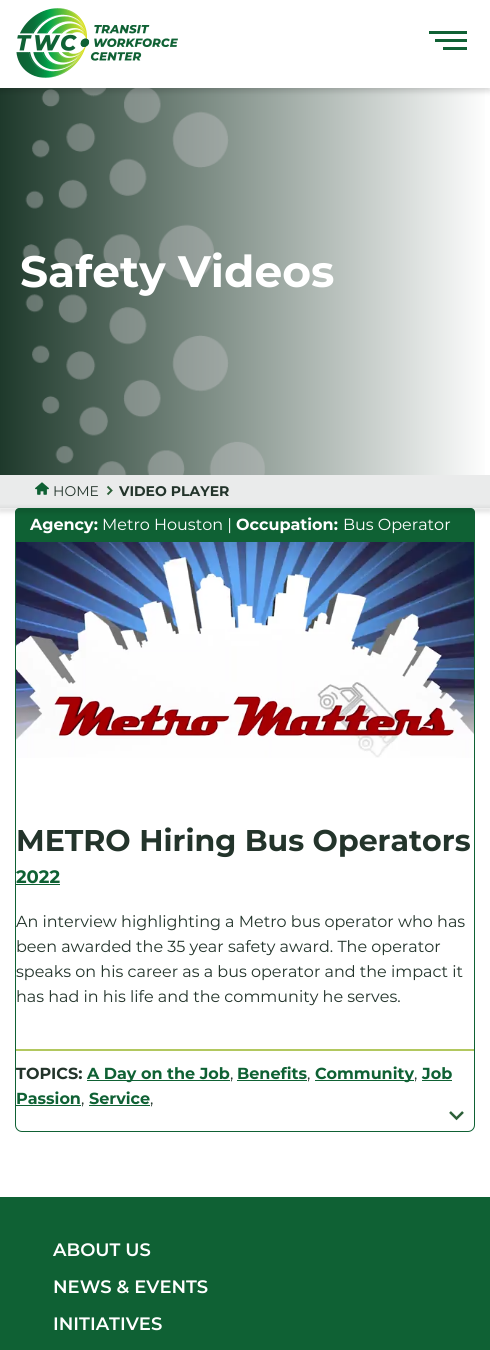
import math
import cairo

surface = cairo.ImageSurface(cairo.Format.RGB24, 490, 1350)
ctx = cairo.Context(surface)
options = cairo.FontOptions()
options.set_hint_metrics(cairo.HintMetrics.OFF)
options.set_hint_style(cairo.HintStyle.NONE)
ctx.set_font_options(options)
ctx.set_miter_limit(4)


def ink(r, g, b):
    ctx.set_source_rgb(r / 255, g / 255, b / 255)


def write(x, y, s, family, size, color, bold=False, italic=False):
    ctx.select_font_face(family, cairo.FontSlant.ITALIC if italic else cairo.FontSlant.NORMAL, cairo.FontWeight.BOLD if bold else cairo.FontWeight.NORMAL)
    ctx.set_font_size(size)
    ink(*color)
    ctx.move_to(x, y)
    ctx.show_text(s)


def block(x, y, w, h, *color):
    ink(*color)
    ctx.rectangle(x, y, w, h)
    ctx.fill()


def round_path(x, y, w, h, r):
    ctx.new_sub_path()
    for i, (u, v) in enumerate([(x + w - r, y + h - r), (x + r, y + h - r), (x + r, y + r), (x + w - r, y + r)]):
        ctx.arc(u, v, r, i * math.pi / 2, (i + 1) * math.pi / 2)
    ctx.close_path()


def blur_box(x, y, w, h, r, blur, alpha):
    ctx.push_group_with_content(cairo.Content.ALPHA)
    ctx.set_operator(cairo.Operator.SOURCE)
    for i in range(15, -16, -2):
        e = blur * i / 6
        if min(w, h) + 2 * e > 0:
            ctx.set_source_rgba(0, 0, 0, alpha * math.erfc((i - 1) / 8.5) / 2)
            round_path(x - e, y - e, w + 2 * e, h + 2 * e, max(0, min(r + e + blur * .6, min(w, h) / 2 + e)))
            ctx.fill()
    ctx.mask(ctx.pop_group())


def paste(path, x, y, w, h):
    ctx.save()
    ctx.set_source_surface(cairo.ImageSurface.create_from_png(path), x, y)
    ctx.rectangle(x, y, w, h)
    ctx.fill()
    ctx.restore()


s1 = dict(family="Montserrat", size=44, color=(255, 255, 255), bold=True)
s2 = dict(family="Montserrat", size=14, color=(35, 52, 43))
s3 = dict(family="Montserrat", size=14, color=(35, 52, 43), bold=True)
s4 = dict(family="Montserrat", size=16, color=(255, 255, 255), bold=True)
s5 = dict(family="Montserrat", size=16, color=(255, 255, 255))
s6 = dict(family="Montserrat", size=30, color=(35, 52, 43), bold=True)
s7 = dict(family="Montserrat", size=18, color=(15, 97, 52), bold=True)
s8 = dict(family="Montserrat", size=16, color=(35, 52, 43))
s9 = dict(family="Montserrat", size=16, color=(35, 52, 43), bold=True)
s10 = dict(family="Montserrat", size=16, color=(15, 97, 52), bold=True)
s11 = dict(family="Montserrat SemiBold", size=18, color=(255, 255, 255))

ink(255, 255, 255)
ctx.paint()
gradient = cairo.LinearGradient(490, 275, 0, 275)
gradient.add_color_stop_rgba(0, 1, 1, 1, 1)
gradient.add_color_stop_rgba(1, 0.118, 0.224, 0.169, 1)
ctx.set_source(gradient)
ctx.rectangle(0, 88, 485, 387)
ctx.fill()
paste("pic2.png", 22, 88, 243, 387)
ink(0, 0, 0)
blur_box(0, 3, 490, 88, 0, 3, 0.16)
block(0, 0, 490, 88, 255, 255, 255)
paste("pic1.png", 16, 8, 162, 70)
block(429, 31, 38, 3, 15, 97, 52)
block(435, 39, 32, 3, 15, 97, 52)
block(443, 47, 24, 3, 15, 97, 52)
write(20, 287, "Safety Videos", **s1)
block(0, 475, 490, 33, 234, 235, 235)
paste("pic3.png", 35, 482, 14, 13)
write(53, 496, "HOME", **s2)
ctx.new_path()
ctx.move_to(107.5, 494.5)
ctx.line_to(111.5, 490.5)
ctx.line_to(107.5, 486.5)
ink(44, 95, 56)
ctx.set_line_width(1.9)
ctx.stroke()
write(119, 496, "VIDEO PLAYER", **s3)
round_path(15.5, 508.5, 459, 623, 6.5)
ink(15, 97, 52)
ctx.set_line_width(1)
ctx.stroke()
ctx.new_path()
ctx.move_to(19, 508)
ctx.line_to(471, 508)
ctx.curve_to(473, 508, 475, 510, 475, 512)
ctx.line_to(475, 542)
ctx.line_to(15, 542)
ctx.line_to(15, 512)
ctx.curve_to(15, 510, 17, 508, 19, 508)
ctx.close_path()
ctx.fill()
ink(0, 0, 0)
blur_box(0, 509, 490, 2, 0, 3, 0.16)
write(30, 530, "Agency:", **s4)
write(102, 530, "Metro Houston |", **s5)
write(236, 530, "Occupation:", **s4)
write(343, 530, "Bus Operator", **s5)
paste("pic4.png", 16, 542, 458, 216)
write(16, 851, "METRO Hiring Bus Operators", **s6)
write(16, 883, "2022", **s7)
block(16, 884, 44, 1, 15, 97, 52)
write(16, 927, "An interview highlighting a Metro bus operator who has", **s8)
write(16, 952, "been awarded the 35 year safety award. The operator", **s8)
write(16, 977, "speaks on his career as a bus operator and the impact it", **s8)
write(16, 1002, "has had in his life and the community he serves.", **s8)
block(16, 1049, 458, 2, 178, 200, 95)
write(16, 1079, "TOPICS:", **s9)
block(87, 1080, 143, 1, 15, 97, 52)
write(87, 1079, "A Day on the Job", **s10)
write(230, 1079, ",", **s8)
write(237, 1079, "Benefits", **s10)
block(237, 1080, 70, 1, 15, 97, 52)
write(307, 1079, ",", **s8)
block(315, 1080, 99, 1, 15, 97, 52)
write(315, 1079, "Community", **s10)
write(414, 1079, ",", **s8)
write(422, 1079, "Job", **s10)
block(422, 1080, 30, 1, 15, 97, 52)
write(16, 1104, "Passion", **s10)
block(16, 1105, 65, 1, 15, 97, 52)
write(81, 1104, ",", **s8)
write(89, 1104, "Service", **s10)
block(89, 1105, 61, 1, 15, 97, 52)
write(150, 1104, ",", **s8)
ctx.new_path()
ctx.move_to(450, 1112)
ctx.line_to(456.5, 1118.5)
ctx.line_to(463, 1112)
ink(44, 95, 56)
ctx.set_line_width(2.5)
ctx.stroke()
block(0, 1197, 490, 153, 15, 97, 52)
write(53, 1256, "ABOUT US", **s11)
write(53, 1293, "NEWS & EVENTS", **s11)
write(53, 1330, "INITIATIVES", **s11)
surface.write_to_png("screenshot.png")
